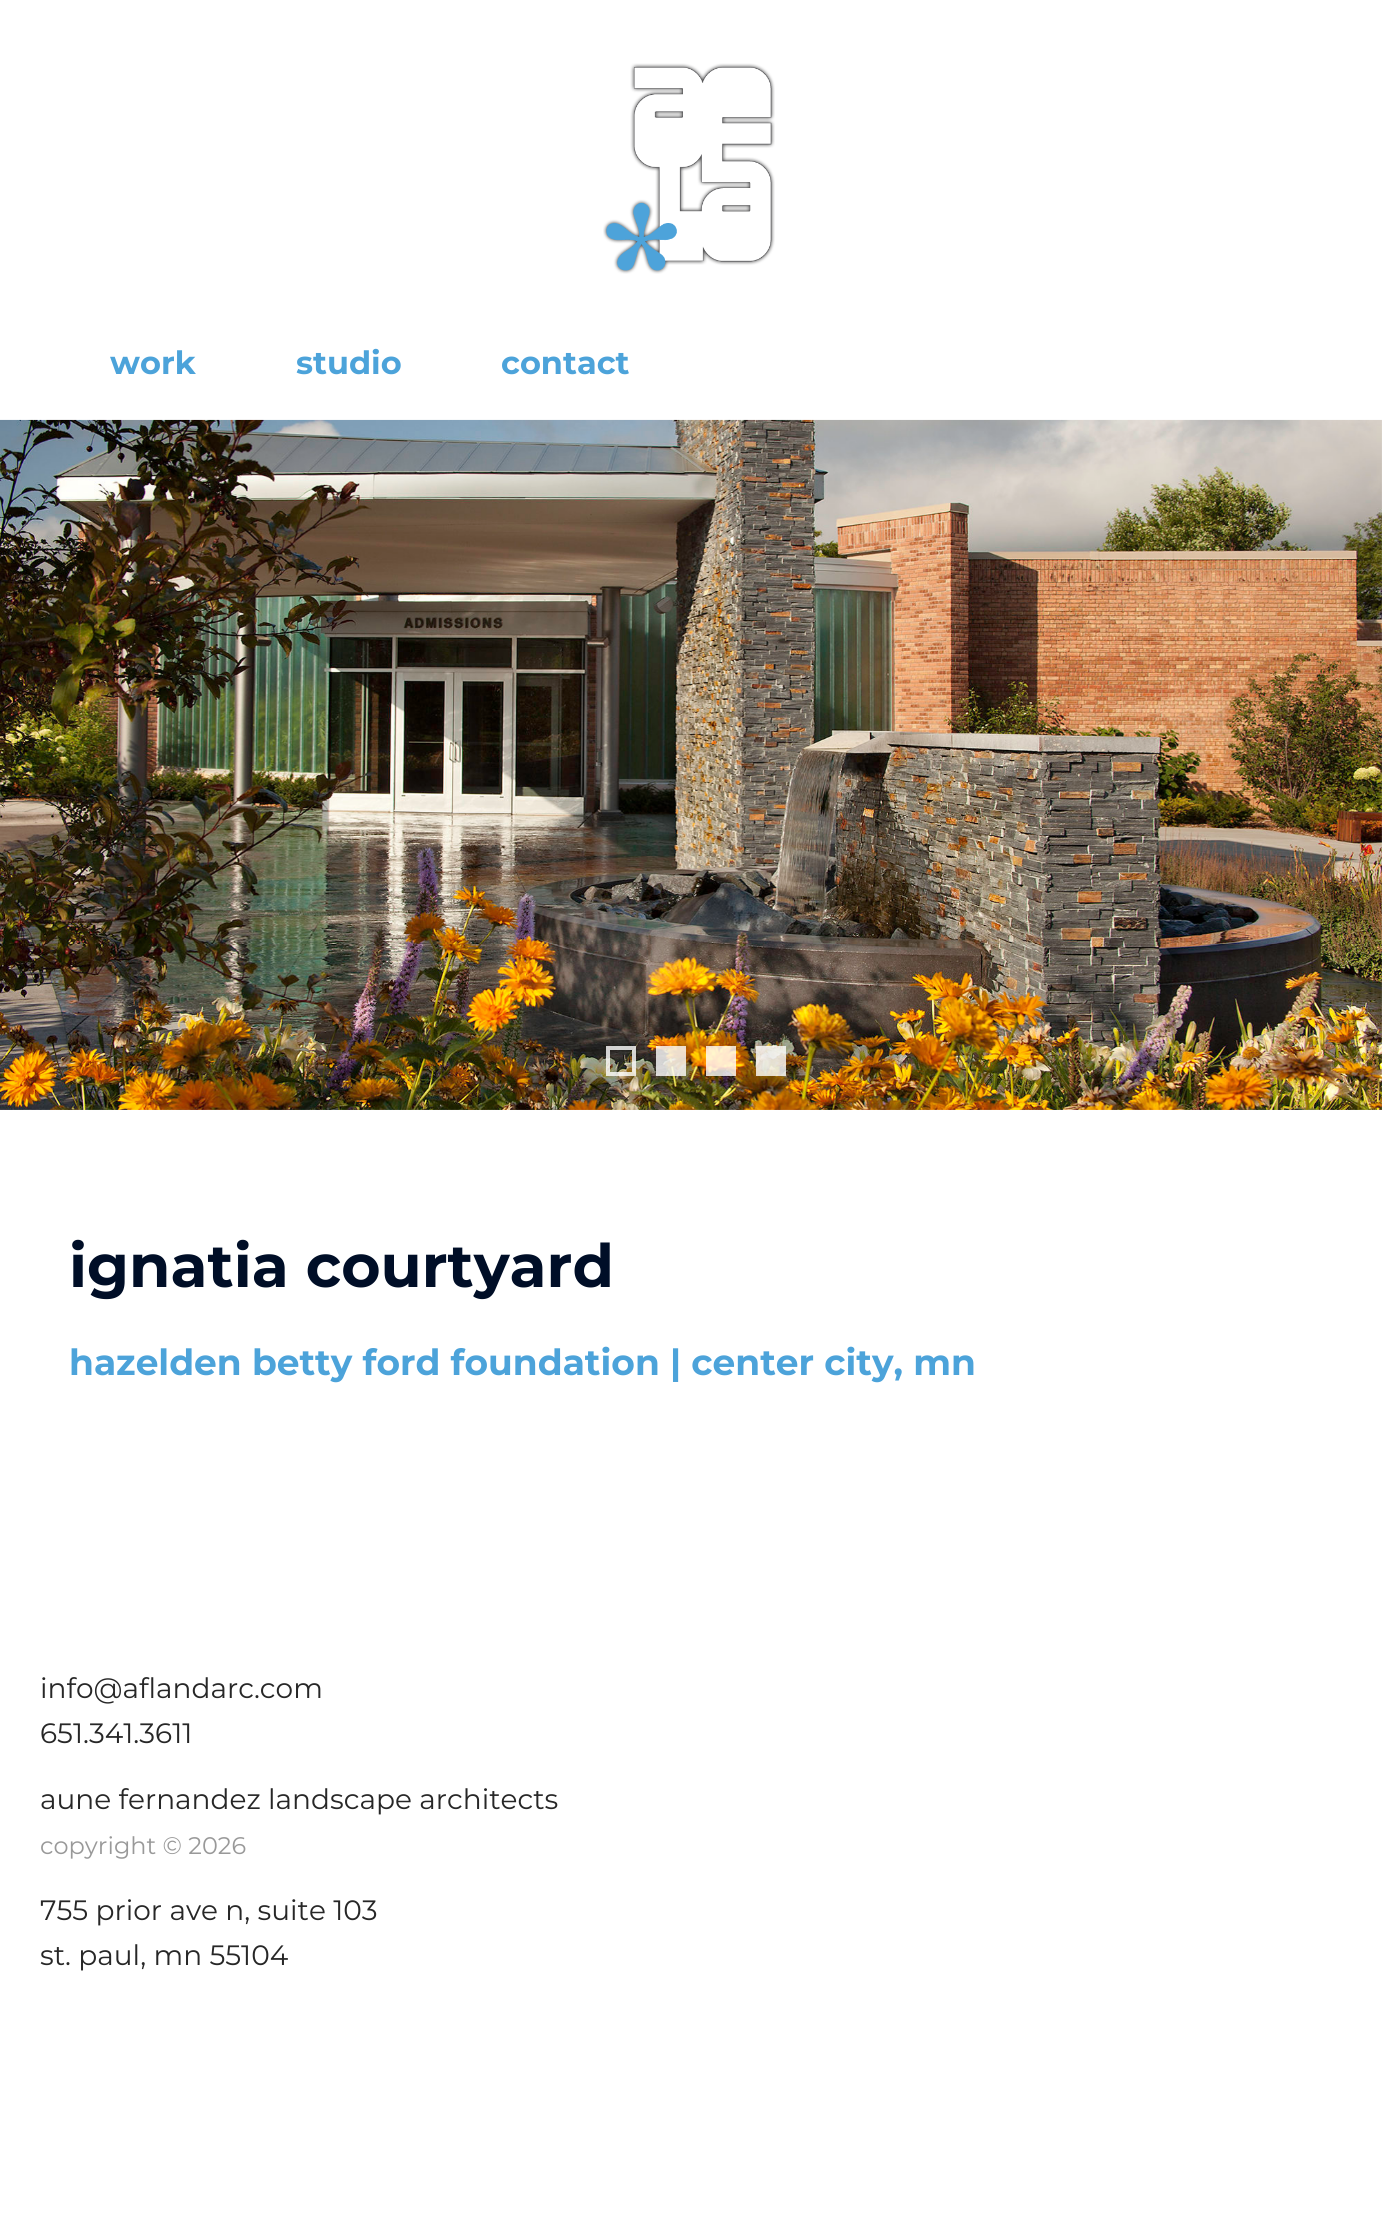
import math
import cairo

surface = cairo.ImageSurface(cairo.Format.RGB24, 1382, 2222)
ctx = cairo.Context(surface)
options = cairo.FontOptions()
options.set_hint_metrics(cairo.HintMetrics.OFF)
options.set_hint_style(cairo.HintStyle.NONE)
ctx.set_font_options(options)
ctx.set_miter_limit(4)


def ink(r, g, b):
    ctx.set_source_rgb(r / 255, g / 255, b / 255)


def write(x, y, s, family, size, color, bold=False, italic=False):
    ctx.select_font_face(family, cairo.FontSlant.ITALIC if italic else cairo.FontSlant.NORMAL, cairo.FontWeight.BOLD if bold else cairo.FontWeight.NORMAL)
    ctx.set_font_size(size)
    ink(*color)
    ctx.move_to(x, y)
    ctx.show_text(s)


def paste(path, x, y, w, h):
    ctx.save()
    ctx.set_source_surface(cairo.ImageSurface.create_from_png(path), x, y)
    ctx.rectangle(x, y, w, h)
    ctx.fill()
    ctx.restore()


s1 = dict(family="Montserrat", size=32, color=(76, 163, 218), bold=True)
s2 = dict(family="Montserrat", size=60, color=(0, 14, 39), bold=True)
s3 = dict(family="Montserrat", size=36, color=(76, 163, 218), bold=True)
s4 = dict(family="Montserrat", size=28, color=(39, 39, 39))
s5 = dict(family="Montserrat", size=24, color=(153, 153, 153))

ink(255, 255, 255)
ctx.paint()
paste("pic1.png", 603, 63, 172, 211)
write(110, 374, "work", **s1)
write(296, 374, "studio", **s1)
write(501, 374, "contact", **s1)
paste("pic2.png", 0, 419, 1382, 691)
ctx.rectangle(608, 1048, 26, 26)
ctx.set_source_rgba(1, 1, 1, 0.8)
ctx.set_line_width(4)
ctx.stroke()
ctx.rectangle(656, 1046, 30, 30)
ctx.fill()
ctx.rectangle(706, 1046, 30, 30)
ctx.fill()
ctx.rectangle(756, 1046, 30, 30)
ctx.fill()
write(69, 1287, "ignatia courtyard", **s2)
write(69, 1375, "hazelden betty ford foundation | center city, mn", **s3)
write(40, 1698, "info@aflandarc.com", **s4)
write(40, 1743, "651.341.3611", **s4)
write(40, 1809, "aune fernandez landscape architects", **s4)
write(40, 1854, "copyright © 2026", **s5)
write(40, 1920, "755 prior ave n, suite 103", **s4)
write(40, 1965, "st. paul, mn 55104", **s4)
surface.write_to_png("screenshot.png")
